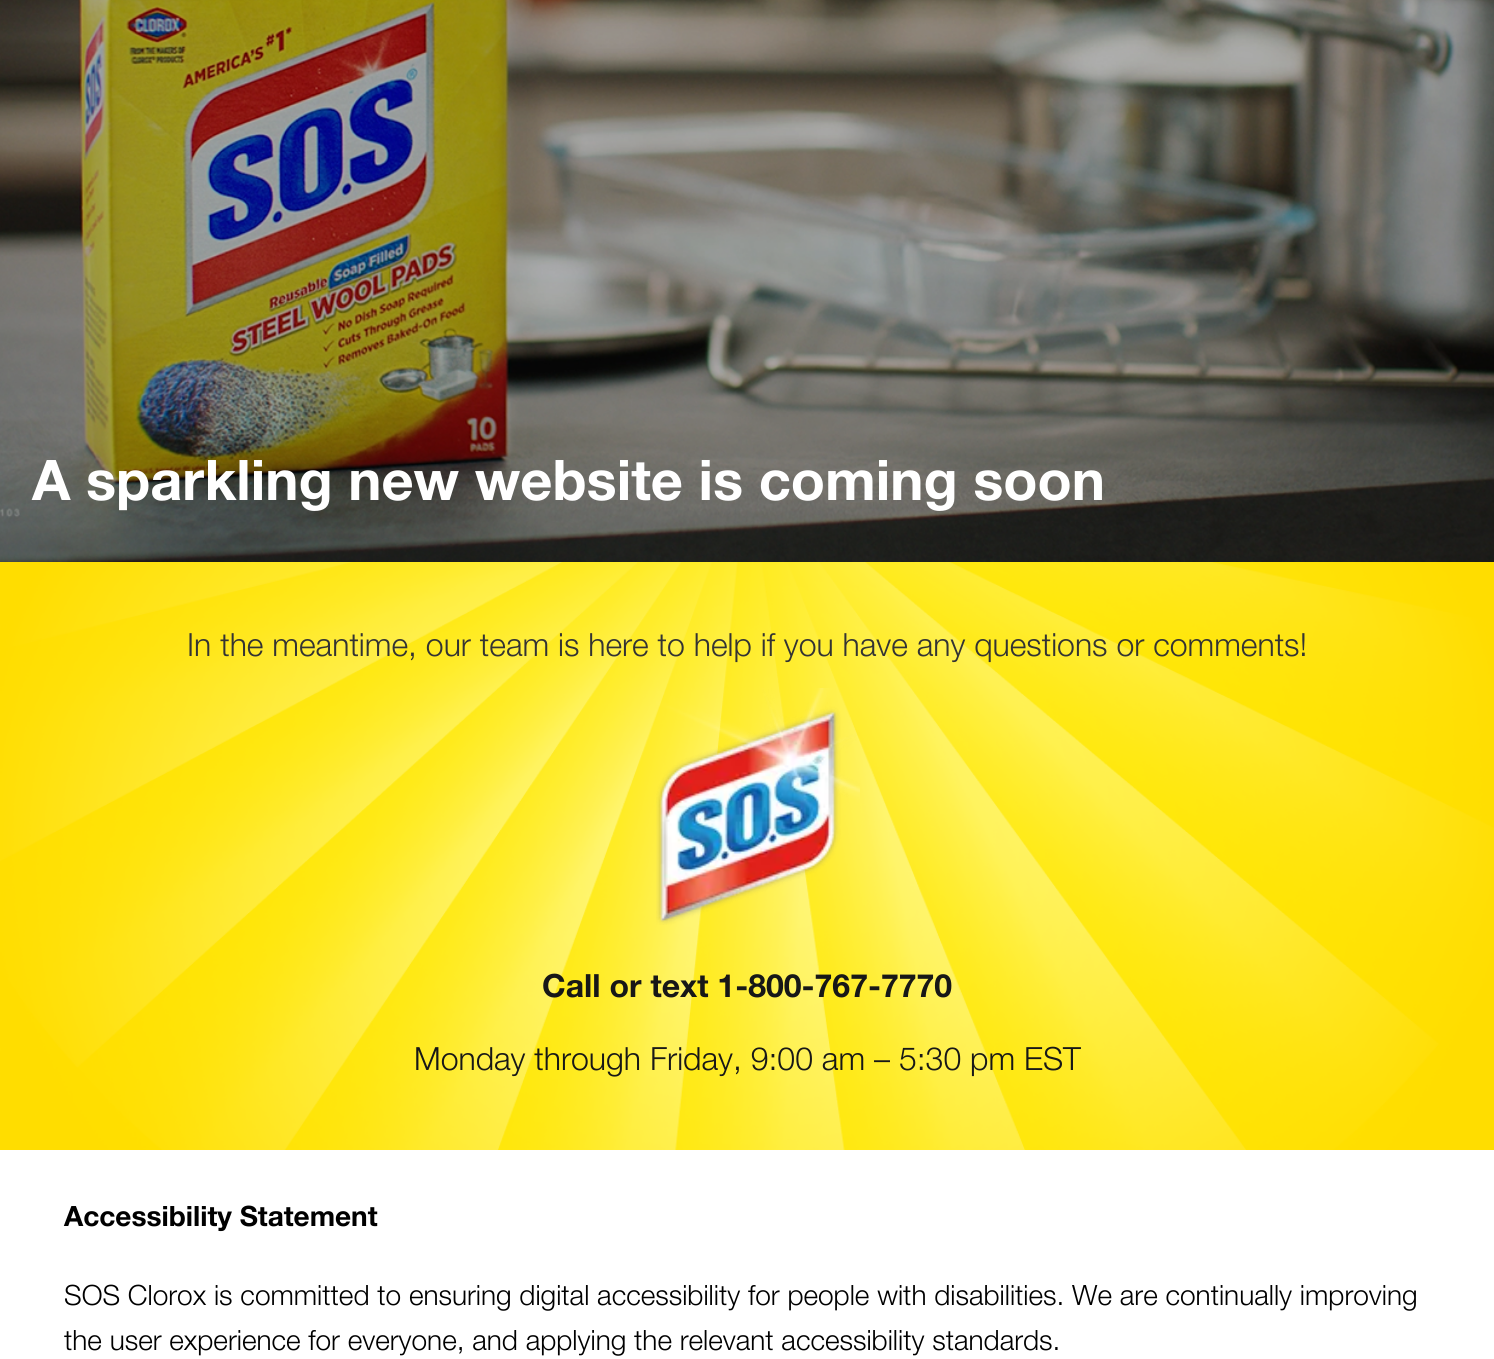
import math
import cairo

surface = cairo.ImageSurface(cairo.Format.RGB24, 1494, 1359)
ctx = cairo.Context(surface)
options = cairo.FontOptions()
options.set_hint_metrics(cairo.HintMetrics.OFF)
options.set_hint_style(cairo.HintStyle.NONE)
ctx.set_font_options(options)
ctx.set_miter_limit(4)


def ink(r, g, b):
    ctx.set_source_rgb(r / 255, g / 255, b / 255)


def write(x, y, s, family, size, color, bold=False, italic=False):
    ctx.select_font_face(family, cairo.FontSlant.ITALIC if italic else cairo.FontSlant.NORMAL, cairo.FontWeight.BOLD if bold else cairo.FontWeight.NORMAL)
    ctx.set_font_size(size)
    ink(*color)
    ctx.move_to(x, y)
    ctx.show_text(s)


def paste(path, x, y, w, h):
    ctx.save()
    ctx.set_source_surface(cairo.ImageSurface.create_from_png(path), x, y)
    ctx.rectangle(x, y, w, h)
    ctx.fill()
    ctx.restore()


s1 = dict(family="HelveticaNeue", size=56, color=(255, 255, 255), bold=True)
s2 = dict(family="HelveticaNeue Light", size=32, color=(51, 51, 51))
s3 = dict(family="HelveticaNeue", size=32, color=(23, 23, 23), bold=True)
s4 = dict(family="HelveticaNeue Light", size=32, color=(23, 23, 23))
s5 = dict(family="HelveticaNeue", size=28, color=(0, 0, 0), bold=True)
s6 = dict(family="HelveticaNeue Light", size=28, color=(0, 0, 0))

ink(255, 255, 255)
ctx.paint()
paste("pic1.png", 0, 0, 1494, 562)
write(32, 500, "A sparkling new website is coming soon", **s1)
paste("pic2.png", 0, 562, 1494, 588)
write(187, 656, "In the meantime, our team is here to help if you have any questions or comments!", **s2)
paste("pic3.png", 656, 688, 204, 237)
write(542, 997, "Call or text 1-800-767-7770", **s3)
write(414, 1070, "Monday through Friday, 9:00 am – 5:30 pm EST", **s4)
write(64, 1226, "Accessibility Statement", **s5)
write(64, 1305, "SOS Clorox is committed to ensuring digital accessibility for people with disabilities. We are continually improving", **s6)
write(64, 1350, "the user experience for everyone, and applying the relevant accessibility standards.", **s6)
surface.write_to_png("screenshot.png")
